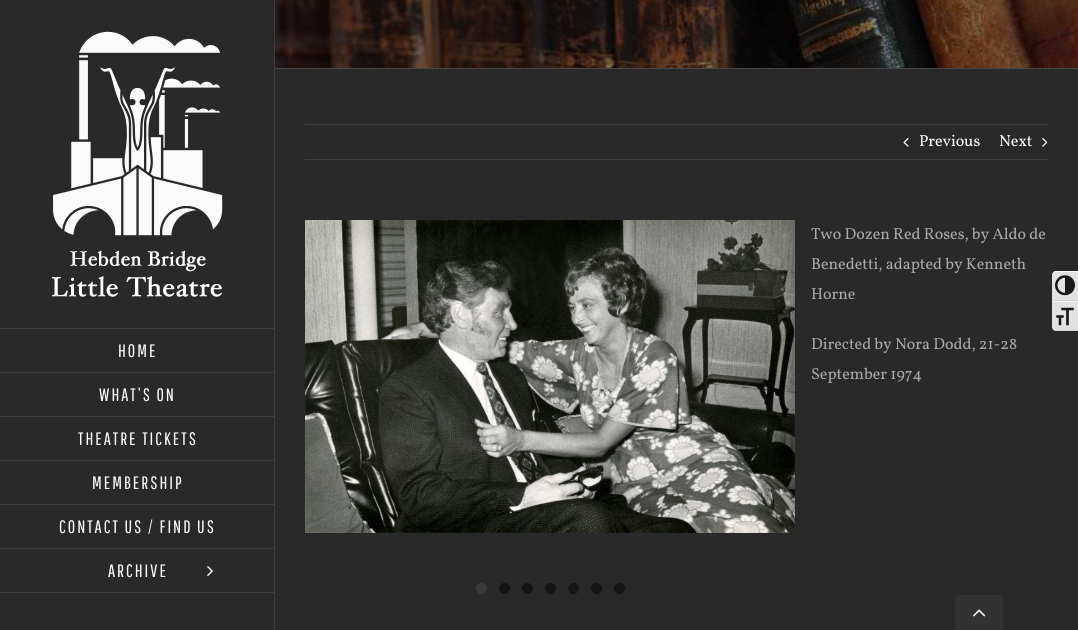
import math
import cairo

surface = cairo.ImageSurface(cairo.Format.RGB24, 1078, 630)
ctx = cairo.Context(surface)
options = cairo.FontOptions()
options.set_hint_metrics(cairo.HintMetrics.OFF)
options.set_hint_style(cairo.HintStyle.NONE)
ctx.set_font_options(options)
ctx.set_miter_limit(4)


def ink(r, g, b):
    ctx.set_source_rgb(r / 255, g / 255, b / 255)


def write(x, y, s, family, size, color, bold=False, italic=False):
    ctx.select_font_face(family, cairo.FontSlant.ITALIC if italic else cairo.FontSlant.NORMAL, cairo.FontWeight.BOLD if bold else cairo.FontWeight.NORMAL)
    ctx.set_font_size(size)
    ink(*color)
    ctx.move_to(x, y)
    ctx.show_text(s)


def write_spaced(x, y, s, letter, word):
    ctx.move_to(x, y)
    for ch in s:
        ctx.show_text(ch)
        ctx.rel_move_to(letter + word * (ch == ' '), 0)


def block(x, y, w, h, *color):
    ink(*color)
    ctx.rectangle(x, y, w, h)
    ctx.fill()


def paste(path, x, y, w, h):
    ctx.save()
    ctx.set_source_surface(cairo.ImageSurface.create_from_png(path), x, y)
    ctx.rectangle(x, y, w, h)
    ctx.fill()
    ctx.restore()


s1 = dict(family="Vollkorn", size=16, color=(255, 255, 255))
s2 = dict(family="Vollkorn", size=16, color=(170, 169, 169))

ink(255, 255, 255)
ctx.paint()
paste("pic1.png", 275, 0, 803, 68)
block(275, 68, 803, 1, 70, 70, 70)
block(275, 69, 803, 561, 41, 41, 42)
block(305, 124, 743, 1, 62, 62, 62)
block(305, 159, 743, 1, 62, 62, 62)
paste("pic2.png", 903, 138, 6, 9)
write(919, 146, "Previous", **s1)
write(999, 146, "Next", **s1)
paste("pic3.png", 1042, 138, 6, 9)
paste("pic4.png", 305, 220, 490, 313)
ink(58, 58, 58)
ctx.arc(481.5, 588.5, 5.5, 0, 2 * math.pi)
ctx.fill()
ink(21, 21, 21)
ctx.arc(504.5, 588.5, 5.5, 0, 2 * math.pi)
ctx.fill()
ctx.arc(527.5, 588.5, 5.5, 0, 2 * math.pi)
ctx.fill()
ctx.arc(550.5, 588.5, 5.5, 0, 2 * math.pi)
ctx.fill()
ctx.arc(573.5, 588.5, 5.5, 0, 2 * math.pi)
ctx.fill()
ctx.arc(596.5, 588.5, 5.5, 0, 2 * math.pi)
ctx.fill()
ctx.arc(619.5, 588.5, 5.5, 0, 2 * math.pi)
ctx.fill()
write(811, 239, "Two Dozen Red Roses, by Aldo de", **s2)
write(811, 269, "Benedetti, adapted by Kenneth", **s2)
write(811, 299, "Horne", **s2)
write(811, 349, "Directed by Nora Dodd, 21-28", **s2)
write(811, 379, "September 1974", **s2)
block(0, 0, 274, 630, 41, 41, 42)
block(274, 0, 1, 630, 62, 62, 62)
paste("pic5.png", 52, 31, 171, 266)
block(0, 328, 275, 1, 62, 62, 62)
block(0, 372, 275, 1, 62, 62, 62)
ctx.select_font_face("Pathway Gothic One")
ctx.set_font_size(18)
ink(255, 255, 255)
write_spaced(118, 357, "HOME", 2, 0)
block(0, 416, 275, 1, 62, 62, 62)
ink(255, 255, 255)
write_spaced(99, 401, "WHAT’S ON", 2, 0)
block(0, 460, 275, 1, 62, 62, 62)
ink(255, 255, 255)
write_spaced(78, 445, "THEATRE TICKETS", 2, 0)
block(0, 504, 275, 1, 62, 62, 62)
ink(255, 255, 255)
write_spaced(92, 489, "MEMBERSHIP", 2, 0)
block(0, 548, 275, 1, 62, 62, 62)
ink(255, 255, 255)
write_spaced(59, 533, "CONTACT US / FIND US", 2, 0)
block(0, 592, 275, 1, 62, 62, 62)
ink(255, 255, 255)
write_spaced(108, 577, "ARCHIVE", 2, 0)
paste("pic6.png", 207, 566, 6, 10)
ink(226, 226, 226)
ctx.new_path()
ctx.move_to(1056, 271)
ctx.line_to(1078, 271)
ctx.line_to(1078, 301)
ctx.line_to(1052, 301)
ctx.line_to(1052, 275)
ctx.curve_to(1052, 273, 1054, 271, 1056, 271)
ctx.close_path()
ctx.fill()
ink(245, 245, 245)
ctx.new_path()
ctx.move_to(1056, 272)
ctx.line_to(1078, 272)
ctx.line_to(1078, 271)
ctx.line_to(1056, 271)
ctx.curve_to(1054, 271, 1052, 273, 1052, 275)
ctx.curve_to(1052, 273.5, 1054, 272, 1056, 272)
ctx.close_path()
ctx.fill()
block(1052, 300, 26, 1, 210, 210, 210)
paste("pic7.png", 1055, 275, 20, 21)
ink(226, 226, 226)
ctx.new_path()
ctx.move_to(1052, 301)
ctx.line_to(1078, 301)
ctx.line_to(1078, 331)
ctx.line_to(1056, 331)
ctx.curve_to(1054, 331, 1052, 329, 1052, 327)
ctx.close_path()
ctx.fill()
block(1052, 301, 26, 1, 245, 245, 245)
ink(210, 210, 210)
ctx.new_path()
ctx.move_to(1078, 331)
ctx.line_to(1078, 330)
ctx.line_to(1056, 330)
ctx.curve_to(1054, 330, 1052, 328.5, 1052, 327)
ctx.curve_to(1052, 329, 1054, 331, 1056, 331)
ctx.close_path()
ctx.fill()
paste("pic8.png", 1056, 307, 18, 19)
ink(50, 50, 50)
ctx.new_path()
ctx.move_to(959, 595)
ctx.line_to(999, 595)
ctx.curve_to(1001, 595, 1003, 597, 1003, 599)
ctx.line_to(1003, 630)
ctx.line_to(955, 630)
ctx.line_to(955, 599)
ctx.curve_to(955, 597, 957, 595, 959, 595)
ctx.close_path()
ctx.fill()
paste("pic9.png", 973, 609, 13, 8)
surface.write_to_png("screenshot.png")
